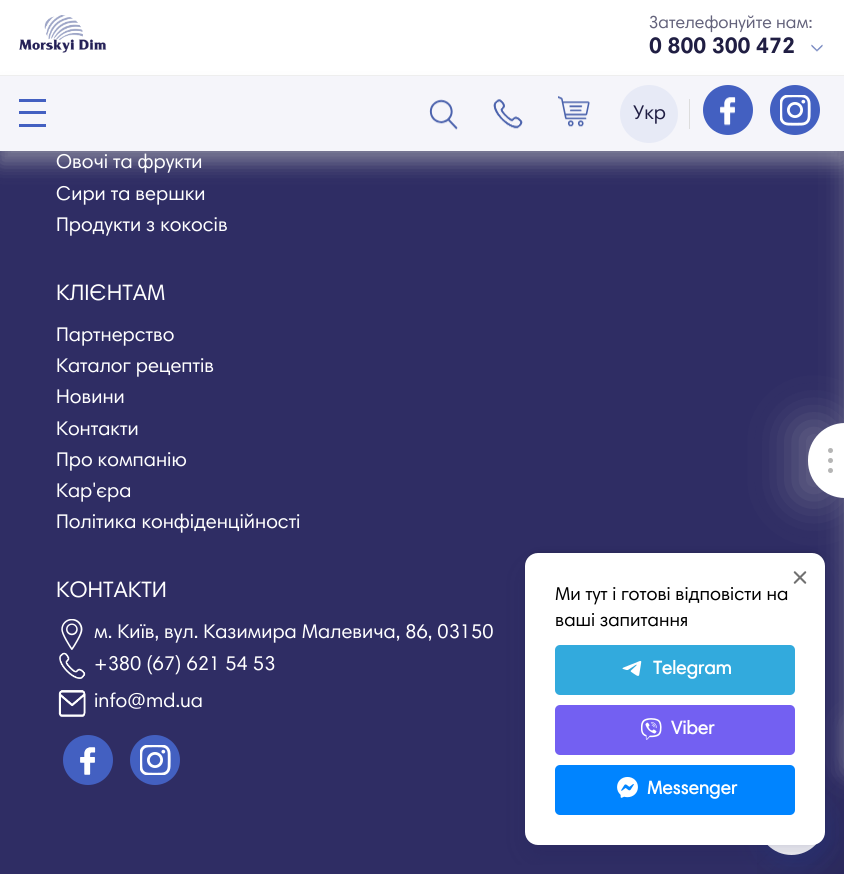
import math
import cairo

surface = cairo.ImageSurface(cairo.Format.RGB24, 844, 874)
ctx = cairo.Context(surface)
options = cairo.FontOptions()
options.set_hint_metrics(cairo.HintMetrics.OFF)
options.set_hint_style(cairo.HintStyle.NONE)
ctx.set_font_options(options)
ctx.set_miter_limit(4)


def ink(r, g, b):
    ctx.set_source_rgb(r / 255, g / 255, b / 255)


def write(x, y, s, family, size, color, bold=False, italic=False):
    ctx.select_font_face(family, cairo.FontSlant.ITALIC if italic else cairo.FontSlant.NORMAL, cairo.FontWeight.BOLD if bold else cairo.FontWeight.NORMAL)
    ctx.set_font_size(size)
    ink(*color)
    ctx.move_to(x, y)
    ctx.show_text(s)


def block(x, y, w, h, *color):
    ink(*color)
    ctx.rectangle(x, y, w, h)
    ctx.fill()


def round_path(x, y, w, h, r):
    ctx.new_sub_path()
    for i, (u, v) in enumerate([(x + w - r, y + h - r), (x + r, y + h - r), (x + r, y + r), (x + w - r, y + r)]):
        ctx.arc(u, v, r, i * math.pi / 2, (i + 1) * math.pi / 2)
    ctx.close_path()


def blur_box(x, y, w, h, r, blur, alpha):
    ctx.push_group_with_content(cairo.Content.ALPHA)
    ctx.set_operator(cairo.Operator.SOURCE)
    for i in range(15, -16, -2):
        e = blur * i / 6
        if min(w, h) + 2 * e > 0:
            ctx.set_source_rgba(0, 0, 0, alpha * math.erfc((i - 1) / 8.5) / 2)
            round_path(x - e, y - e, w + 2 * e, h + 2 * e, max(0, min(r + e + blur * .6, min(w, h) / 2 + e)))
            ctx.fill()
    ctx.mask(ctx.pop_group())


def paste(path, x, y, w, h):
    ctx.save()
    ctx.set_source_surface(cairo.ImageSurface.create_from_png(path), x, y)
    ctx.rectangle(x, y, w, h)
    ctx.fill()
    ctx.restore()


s1 = dict(family="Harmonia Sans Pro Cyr", size=17.5, color=(99, 98, 123))
s2 = dict(family="Harmonia Sans Pro Cyr", size=22.5, color=(32, 30, 67), bold=True)
s3 = dict(family="Harmonia Sans Pro Cyr", size=20, color=(32, 30, 67))
s4 = dict(family="Harmonia Sans Pro Cyr", size=20, color=(255, 255, 255))
s5 = dict(family="Harmonia Sans Pro Cyr", size=22.5, color=(255, 255, 255))
s6 = dict(family="Harmonia Sans Pro Cyr", size=18.75, color=(0, 0, 0))
s7 = dict(family="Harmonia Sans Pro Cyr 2", size=18.75, color=(255, 255, 255), bold=True)

ink(47, 45, 100)
ctx.paint()
ink(196, 196, 196)
blur_box(0, 0, 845, 151, 0, 12.5, 0.38)
block(0, 0, 844, 75, 255, 255, 255)
ink(196, 196, 196)
blur_box(0, 89, 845, 75, 0, 9.5, 0.38)
block(0, 75, 844, 1, 238, 238, 238)
paste("pic1.png", 19, 15, 88, 38)
write(649, 28, "Зателефонуйте нам:", **s1)
write(649, 53, "0 800 300 472", **s2)
paste("pic2.png", 811, 44, 12, 8)
ink(196, 196, 196)
blur_box(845, 148, 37, 625, 0, 12.5, 0.38)
block(0, 76, 844, 75, 245, 245, 250)
block(19, 99, 27, 3, 67, 96, 193)
block(19, 111, 27, 3, 67, 96, 193)
block(19, 124, 27, 3, 67, 96, 193)
paste("pic3.png", 429, 99, 29, 31)
paste("pic4.png", 493, 99, 30, 30)
paste("pic5.png", 558, 96, 32, 31)
ink(231, 234, 246)
ctx.arc(649, 114, 29, 0, 2 * math.pi)
ctx.fill()
write(633, 119, "Укр", **s3)
block(689, 99, 1, 30, 221, 221, 221)
ink(67, 96, 193)
ctx.new_path()
ctx.arc(728, 110, 25, 0, 2 * math.pi)
ctx.fill()
paste("pic6.png", 720, 97, 16, 29)
ctx.arc(795, 110, 25, 0, 2 * math.pi)
ctx.fill()
paste("pic7.png", 780, 95, 31, 31)
write(56, 168, "Овочі та фрукти", **s4)
write(56, 200, "Сири та вершки", **s4)
write(56, 231, "Продукти з кокосів", **s4)
write(56, 300, "КЛІЄНТАМ", **s5)
write(56, 341, "Партнерство", **s4)
write(56, 372, "Каталог рецептів", **s4)
write(56, 403, "Новини", **s4)
write(56, 435, "Контакти", **s4)
write(56, 466, "Про компанію", **s4)
write(56, 497, "Кар'єра", **s4)
write(56, 528, "Політика конфіденційності", **s4)
write(56, 597, "КОНТАКТИ", **s5)
paste("pic8.png", 61, 619, 22, 31)
write(94, 638, "м. Київ, вул. Казимира Малевича, 86, 03150", **s4)
paste("pic9.png", 59, 652, 27, 27)
write(94, 670, "+380 (67) 621 54 53", **s4)
paste("pic10.png", 58, 690, 28, 27)
write(94, 707, "info@md.ua", **s4)
ink(67, 96, 193)
ctx.new_path()
ctx.arc(88, 760, 25, 0, 2 * math.pi)
ctx.fill()
paste("pic11.png", 80, 747, 16, 28)
ctx.arc(155, 760, 25, 0, 2 * math.pi)
ctx.fill()
paste("pic12.png", 140, 745, 31, 30)
ink(196, 196, 196)
blur_box(795, 423, 38, 75, 38, 22, 0.38)
ink(255, 255, 255)
ctx.new_path()
ctx.move_to(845, 423)
ctx.line_to(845, 498)
ctx.curve_to(824.5, 498, 808, 481.5, 808, 461)
ctx.line_to(808, 460)
ctx.curve_to(808, 439.5, 824.5, 423, 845, 423)
ctx.close_path()
ctx.fill()
ink(181, 181, 181)
ctx.arc(830.5, 450.5, 2.5, 0, 2 * math.pi)
ctx.fill()
ctx.arc(830.5, 460.5, 2.5, 0, 2 * math.pi)
ctx.fill()
ctx.arc(830.5, 470.5, 2.5, 0, 2 * math.pi)
ctx.fill()
ink(196, 196, 196)
blur_box(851, 723, 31, 37, 0, 12.5, 0.38)
gradient = cairo.LinearGradient(719, 749, 844, 874)
gradient.add_color_stop_rgba(0.5, 0.055, 0.055, 0.161, 0)
gradient.add_color_stop_rgba(1, 0.055, 0.055, 0.161, 0.15)
ctx.set_source(gradient)
ctx.rectangle(757, 777, 87, 97)
ctx.fill()
ink(32, 83, 184)
blur_box(761, 798, 68, 67, 33.5, 12.5, 0.2)
ink(255, 255, 255)
ctx.arc(791.5, 821.5, 33.5, 0, 2 * math.pi)
ctx.fill()
ctx.save()
ctx.rectangle(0, 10, 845, 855)
ctx.clip()
ink(31, 31, 87)
blur_box(525, 565, 300, 293, 13, 12.5, 0.2)
ctx.restore()
ink(0, 0, 0)
blur_box(525, 551, 300, 293, 13, 1, 0.1)
ink(255, 255, 255)
round_path(525, 553, 300, 292, 13)
ctx.fill()
paste("pic13.png", 793, 571, 14, 13)
write(555, 600, "Ми тут і готові відповісти на", **s6)
write(555, 626, "ваші запитання", **s6)
ink(50, 170, 221)
round_path(555, 645, 240, 50, 5)
ctx.fill()
paste("pic14.png", 622, 661, 20, 15)
write(653, 674, "Telegram", **s7)
ink(115, 96, 242)
round_path(555, 705, 240, 50, 5)
ctx.fill()
paste("pic15.png", 641, 718, 21, 22)
write(671, 734, "Viber", **s7)
ink(0, 132, 255)
round_path(555, 765, 240, 50, 5)
ctx.fill()
paste("pic16.png", 617, 777, 21, 21)
write(647, 794, "Messenger", **s7)
surface.write_to_png("screenshot.png")
